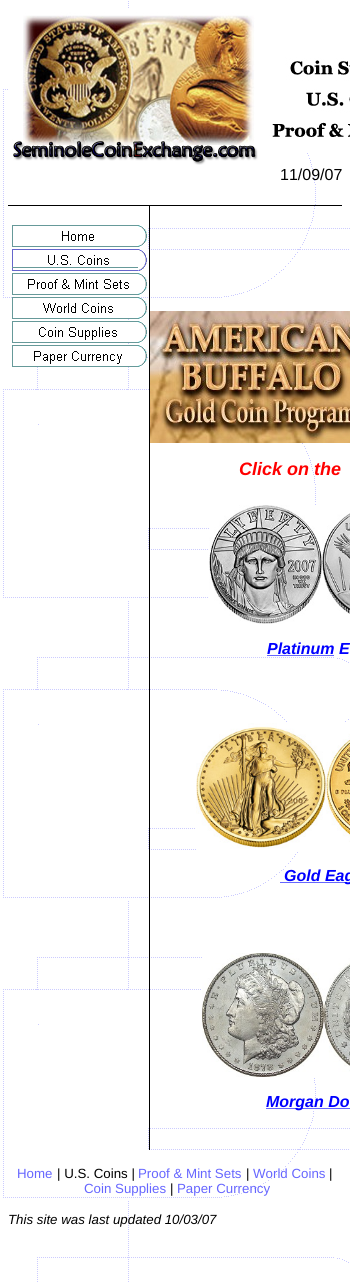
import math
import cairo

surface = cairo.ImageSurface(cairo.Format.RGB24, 350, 1283)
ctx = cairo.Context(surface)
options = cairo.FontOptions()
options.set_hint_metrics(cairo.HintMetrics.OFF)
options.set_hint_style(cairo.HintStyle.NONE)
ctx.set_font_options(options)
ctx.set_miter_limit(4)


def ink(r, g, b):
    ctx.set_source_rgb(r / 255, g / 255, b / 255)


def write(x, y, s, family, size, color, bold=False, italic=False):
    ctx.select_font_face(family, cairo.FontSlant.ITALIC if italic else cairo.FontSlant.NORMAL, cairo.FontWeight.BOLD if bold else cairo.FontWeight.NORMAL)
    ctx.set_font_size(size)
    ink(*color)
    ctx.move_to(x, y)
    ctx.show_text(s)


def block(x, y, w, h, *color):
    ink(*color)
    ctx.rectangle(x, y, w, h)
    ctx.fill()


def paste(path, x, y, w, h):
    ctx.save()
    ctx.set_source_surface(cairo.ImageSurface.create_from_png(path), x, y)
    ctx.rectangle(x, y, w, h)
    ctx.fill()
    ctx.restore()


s1 = dict(family="Liberation Sans", size=16, color=(0, 0, 0))
s2 = dict(family="Liberation Sans", size=18, color=(255, 0, 0), bold=True, italic=True)
s3 = dict(family="Liberation Sans", size=16, color=(0, 0, 255), bold=True, italic=True)
s4 = dict(family="Liberation Sans", size=13.3, color=(102, 102, 255))
s5 = dict(family="Liberation Sans", size=13.3, color=(0, 0, 0))
s6 = dict(family="Liberation Sans", size=13.3, color=(0, 0, 0), italic=True)

ink(255, 255, 255)
ctx.paint()
paste("pic1.png", 3, 1, 347, 1281)
paste("pic2.png", 9, 9, 251, 156)
paste("pic3.png", 261, 57, 89, 95)
block(8, 205, 334, 1, 0, 0, 0)
write(280, 180, "11/09/07", **s1)
block(149, 206, 1, 944, 0, 0, 0)
paste("pic4.png", 12, 225, 135, 22)
paste("pic5.png", 12, 249, 135, 22)
paste("pic6.png", 12, 273, 135, 22)
paste("pic7.png", 12, 297, 135, 22)
paste("pic8.png", 12, 321, 135, 22)
paste("pic9.png", 12, 345, 135, 22)
paste("pic10.png", 150, 311, 200, 132)
write(239, 475, "Click on the", **s2)
paste("pic11.png", 209, 505, 113, 119)
paste("pic12.png", 322, 513, 28, 101)
write(267, 654, "Platinum E", **s3)
block(267, 655, 67, 1, 102, 102, 255)
paste("pic13.png", 196, 723, 130, 127)
paste("pic14.png", 326, 722, 24, 128)
block(280, 882, 70, 1, 102, 102, 255)
write(284, 881, "Gold Eag", **s3)
paste("pic15.png", 202, 953, 148, 124)
block(266, 1108, 84, 1, 102, 102, 255)
write(266, 1107, "Morgan Do", **s3)
write(17, 1178, "Home", **s4)
write(57, 1178, "| U.S. Coins |", **s5)
write(138, 1178, "Proof & Mint Sets", **s4)
write(246, 1178, "|", **s5)
write(253, 1178, "World Coins", **s4)
write(329, 1178, "|", **s5)
write(84, 1193, "Coin Supplies", **s4)
write(170, 1193, "|", **s5)
write(177, 1193, "Paper Currency", **s4)
write(8, 1224, "This site was last updated 10/03/07", **s6)
surface.write_to_png("screenshot.png")
